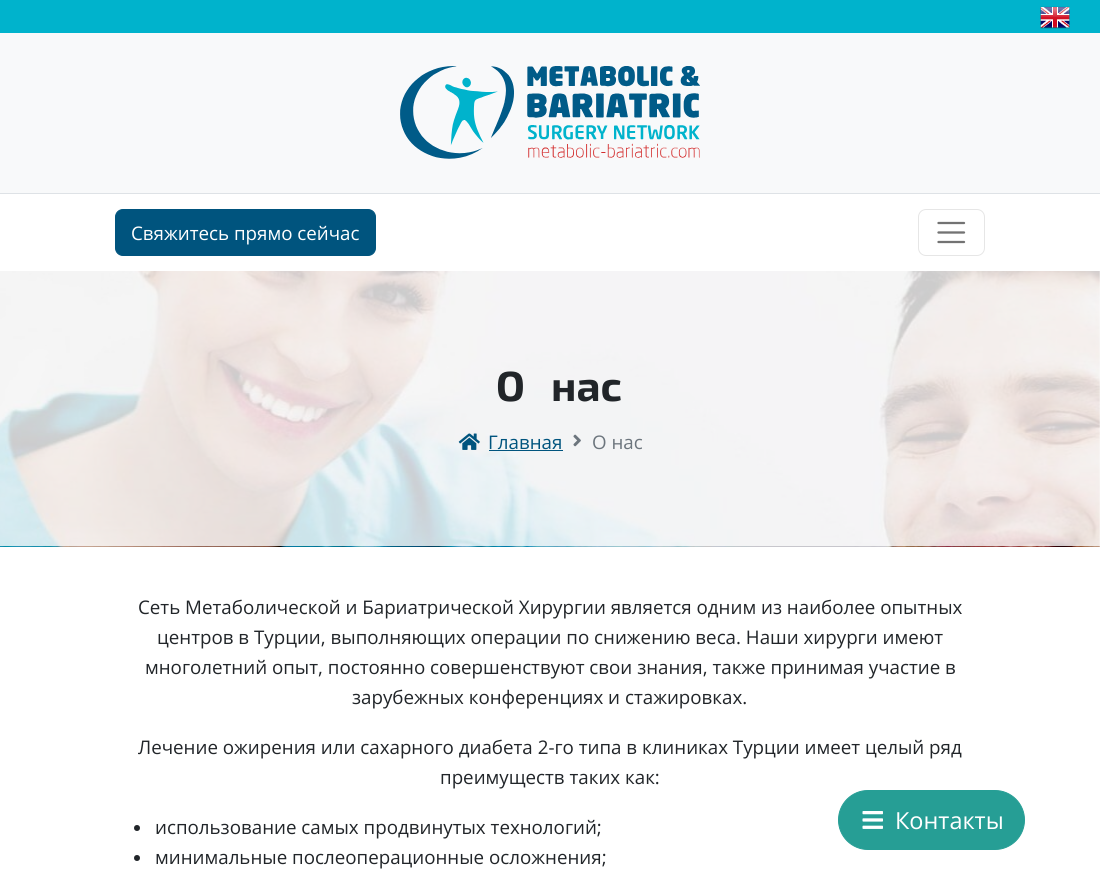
import math
import cairo

surface = cairo.ImageSurface(cairo.Format.RGB24, 1100, 875)
ctx = cairo.Context(surface)
options = cairo.FontOptions()
options.set_hint_metrics(cairo.HintMetrics.OFF)
options.set_hint_style(cairo.HintStyle.NONE)
ctx.set_font_options(options)
ctx.set_miter_limit(4)


def ink(r, g, b):
    ctx.set_source_rgb(r / 255, g / 255, b / 255)


def write(x, y, s, family, size, color, bold=False, italic=False):
    ctx.select_font_face(family, cairo.FontSlant.ITALIC if italic else cairo.FontSlant.NORMAL, cairo.FontWeight.BOLD if bold else cairo.FontWeight.NORMAL)
    ctx.set_font_size(size)
    ink(*color)
    ctx.move_to(x, y)
    ctx.show_text(s)


def block(x, y, w, h, *color):
    ink(*color)
    ctx.rectangle(x, y, w, h)
    ctx.fill()


def round_path(x, y, w, h, r):
    ctx.new_sub_path()
    for i, (u, v) in enumerate([(x + w - r, y + h - r), (x + r, y + h - r), (x + r, y + r), (x + w - r, y + r)]):
        ctx.arc(u, v, r, i * math.pi / 2, (i + 1) * math.pi / 2)
    ctx.close_path()


def paste(path, x, y, w, h):
    ctx.save()
    ctx.set_source_surface(cairo.ImageSurface.create_from_png(path), x, y)
    ctx.rectangle(x, y, w, h)
    ctx.fill()
    ctx.restore()


s1 = dict(family="Open Sans", size=18.75, color=(255, 255, 255))
s2 = dict(family="Exo 2", size=42, color=(33, 37, 41), bold=True)
s3 = dict(family="Open Sans", size=18.75, color=(0, 84, 126))
s4 = dict(family="Open Sans", size=18.75, color=(108, 117, 125))
s5 = dict(family="Open Sans", size=18.75, color=(33, 37, 41))
s6 = dict(family="Open Sans", size=23.5, color=(255, 255, 255))

ink(255, 255, 255)
ctx.paint()
block(0, 0, 1100, 33, 0, 179, 204)
paste("pic1.png", 1040, 6, 30, 23)
block(0, 33, 1100, 160, 248, 249, 250)
block(0, 193, 1100, 1, 222, 226, 230)
paste("pic2.png", 400, 66, 300, 93)
ink(0, 84, 126)
round_path(115.5, 209.5, 260, 46, 7.5)
ctx.fill_preserve()
ctx.set_line_width(1)
ctx.stroke()
write(131, 240, "Свяжитесь прямо сейчас", **s1)
round_path(918.5, 209.5, 66, 46, 7.5)
ink(230, 230, 230)
ctx.stroke()
ctx.new_path()
ctx.move_to(938.5, 223)
ctx.line_to(964, 223)
ctx.move_to(938.5, 232.5)
ctx.line_to(964, 232.5)
ctx.move_to(938.5, 242)
ctx.line_to(964, 242)
ink(115, 115, 115)
ctx.set_line_width(2.3)
ctx.set_line_cap(cairo.LineCap.ROUND)
ctx.stroke()
paste("pic3.png", 0, 271, 1100, 276)
write(496, 401, "О нас", **s2)
paste("pic4.png", 458, 433, 22, 17)
write(488, 449, "Главная", **s3)
block(489, 450, 74, 1, 0, 84, 126)
paste("pic5.png", 573, 434, 8, 13)
write(592, 449, "О нас", **s4)
write(138, 614, "Сеть Метаболической и Бариатрической Хирургии является одним из наиболее опытных", **s5)
write(157, 644, "центров в Турции, выполняющих операции по снижению веса. Наши хирурги имеют", **s5)
write(145, 674, "многолетний опыт, постоянно совершенствуют свои знания, также принимая участие в", **s5)
write(352, 704, "зарубежных конференциях и стажировках.", **s5)
write(138, 754, "Лечение ожирения или сахарного диабета 2-го типа в клиниках Турции имеет целый ряд", **s5)
write(440, 784, "преимуществ таких как:", **s5)
ctx.new_path()
ctx.arc(137, 828, 3, 0, 2 * math.pi)
ctx.fill()
write(155, 834, "использование самых продвинутых технологий;", **s5)
ctx.new_path()
ctx.arc(137, 858, 3, 0, 2 * math.pi)
ctx.fill()
write(155, 864, "минимальные послеоперационные осложнения;", **s5)
ink(38, 158, 149)
round_path(838.5, 790.5, 186, 59, 29.5)
ctx.fill_preserve()
ctx.set_line_width(1)
ctx.set_line_cap(cairo.LineCap.BUTT)
ctx.stroke()
paste("pic6.png", 862, 811, 21, 18)
write(895, 829, "Контакты", **s6)
surface.write_to_png("screenshot.png")
